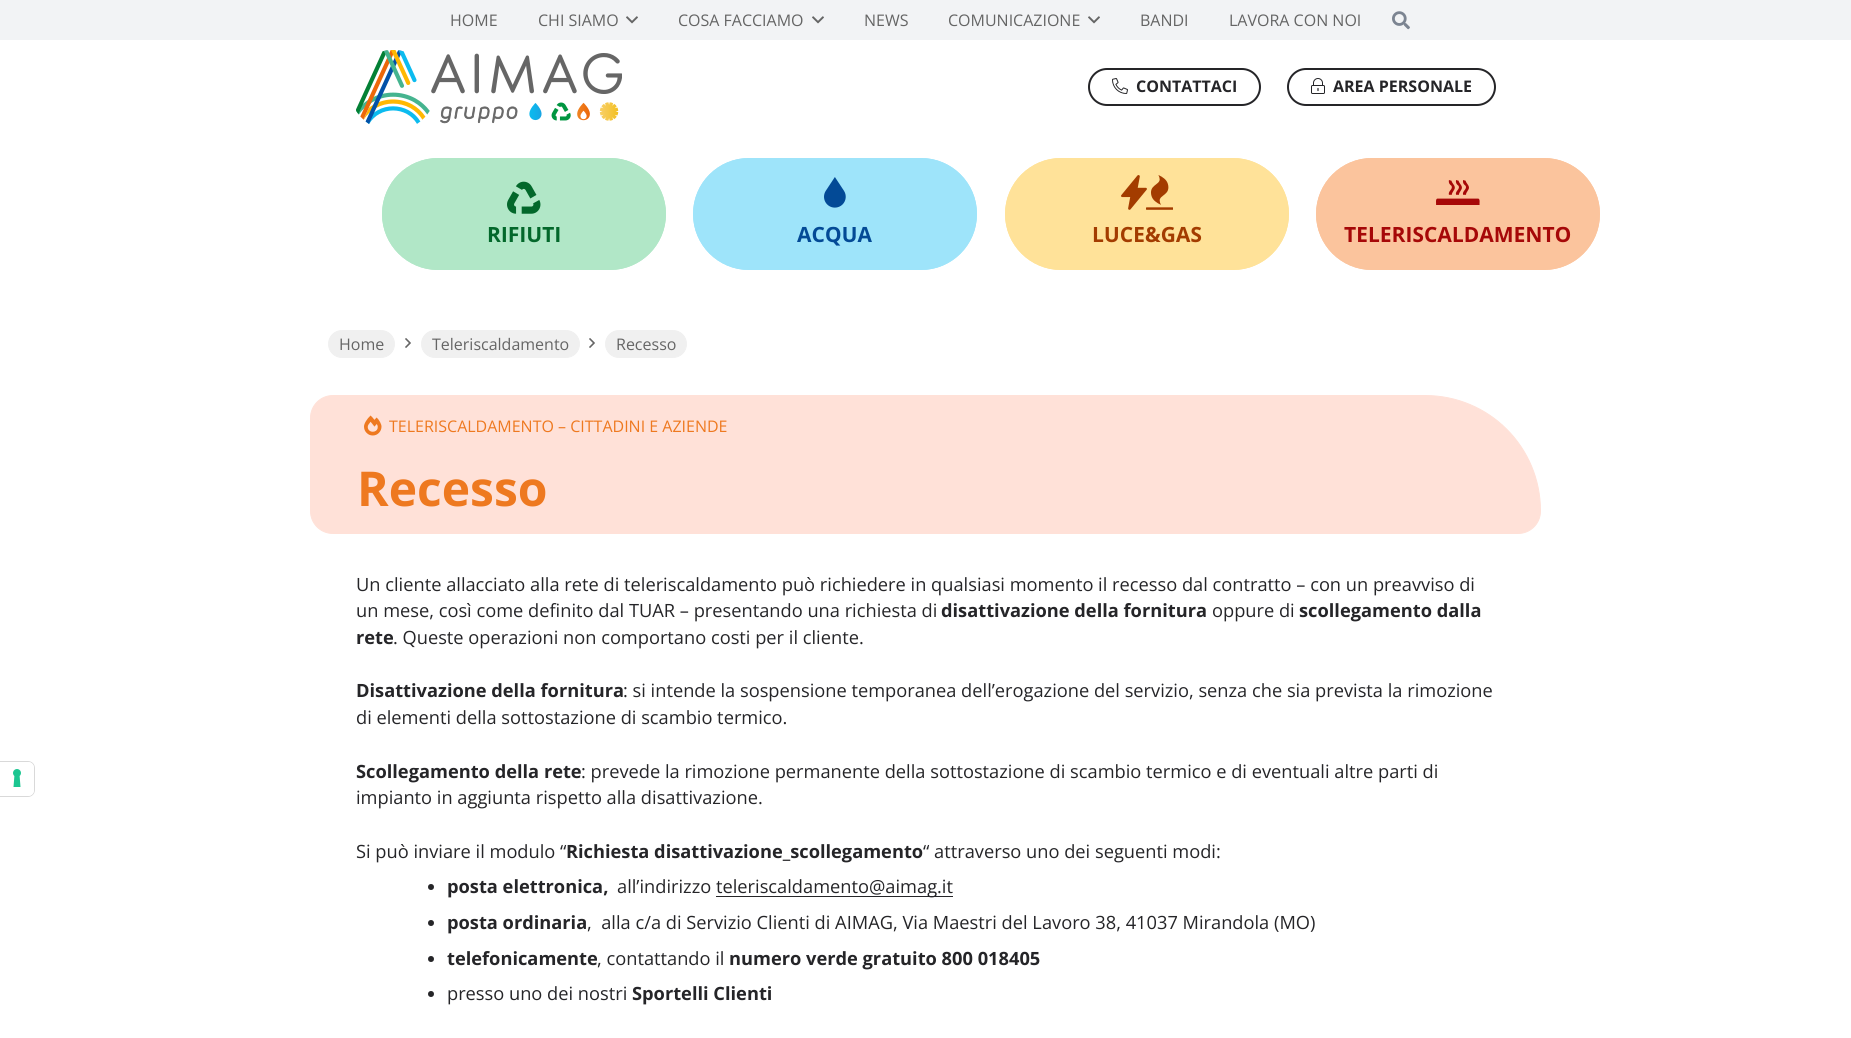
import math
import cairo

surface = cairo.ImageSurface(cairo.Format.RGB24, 1851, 1038)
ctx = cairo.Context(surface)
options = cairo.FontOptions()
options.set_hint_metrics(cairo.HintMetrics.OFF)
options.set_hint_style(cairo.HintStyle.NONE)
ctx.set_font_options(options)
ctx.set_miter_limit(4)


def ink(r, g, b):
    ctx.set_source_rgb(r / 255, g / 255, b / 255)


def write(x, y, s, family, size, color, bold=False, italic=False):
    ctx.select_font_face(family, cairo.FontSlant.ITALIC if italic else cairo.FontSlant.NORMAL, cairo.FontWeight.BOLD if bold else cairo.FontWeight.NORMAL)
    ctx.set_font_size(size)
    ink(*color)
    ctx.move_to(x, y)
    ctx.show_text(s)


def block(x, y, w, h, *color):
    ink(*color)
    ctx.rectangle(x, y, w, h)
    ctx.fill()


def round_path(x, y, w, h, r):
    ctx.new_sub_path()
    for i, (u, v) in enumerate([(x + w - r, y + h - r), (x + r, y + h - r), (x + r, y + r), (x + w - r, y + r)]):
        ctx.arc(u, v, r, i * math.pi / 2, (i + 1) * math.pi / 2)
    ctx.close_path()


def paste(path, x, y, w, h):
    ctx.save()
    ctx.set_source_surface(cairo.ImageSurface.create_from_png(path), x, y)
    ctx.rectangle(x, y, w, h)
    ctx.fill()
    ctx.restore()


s1 = dict(family="Open Sans", size=16, color=(101, 101, 101))
s2 = dict(family="Open Sans", size=16, color=(37, 37, 40), bold=True)
s3 = dict(family="Open Sans", size=16, color=(238, 121, 32))
s4 = dict(family="Open Sans", size=48, color=(238, 121, 32), bold=True)
s5 = dict(family="Open Sans", size=18.25, color=(37, 37, 40))
s6 = dict(family="Open Sans", size=18.25, color=(37, 37, 40), bold=True)

ink(255, 255, 255)
ctx.paint()
ctx.new_path()
ctx.move_to(-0.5, 761.5)
ctx.line_to(28, 761.5)
ctx.curve_to(31.5, 761.5, 34.5, 764.5, 34.5, 768)
ctx.line_to(34.5, 790)
ctx.curve_to(34.5, 793.5, 31.5, 796.5, 28, 796.5)
ctx.line_to(-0.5, 796.5)
ctx.close_path()
ink(217, 217, 217)
ctx.set_line_width(1)
ctx.stroke()
ink(255, 255, 255)
ctx.new_path()
ctx.move_to(0, 762)
ctx.line_to(28, 762)
ctx.curve_to(31.5, 762, 34, 764.5, 34, 768)
ctx.line_to(34, 790)
ctx.curve_to(34, 793.5, 31.5, 796, 28, 796)
ctx.line_to(0, 796)
ctx.close_path()
ctx.fill()
paste("pic1.png", 13, 769, 8, 18)
block(0, 0, 1851, 40, 242, 243, 245)
write(450, 26, "HOME", **s1)
write(538, 26, "CHI SIAMO", **s1)
paste("pic2.png", 626, 16, 12, 8)
write(678, 26, "COSA FACCIAMO", **s1)
paste("pic2.png", 812, 16, 12, 8)
write(864, 26, "NEWS", **s1)
write(948, 26, "COMUNICAZIONE", **s1)
paste("pic2.png", 1088, 16, 12, 8)
write(1140, 26, "BANDI", **s1)
write(1229, 26, "LAVORA CON NOI", **s1)
paste("pic3.png", 1392, 11, 18, 19)
paste("pic4.png", 356, 50, 266, 74)
paste("pic5.png", 1112, 78, 16, 16)
round_path(1089, 69, 171, 36, 18)
ink(37, 37, 40)
ctx.set_line_width(2)
ctx.stroke()
write(1136, 92, "CONTATTACI", **s2)
paste("pic6.png", 1311, 78, 14, 16)
round_path(1288, 69, 207, 36, 18)
ctx.stroke()
write(1333, 92, "AREA PERSONALE", **s2)
paste("pic7.png", 382, 158, 284, 112)
paste("pic8.png", 382, 158, 284, 112)
paste("pic9.png", 693, 158, 284, 112)
paste("pic10.png", 693, 158, 284, 112)
paste("pic11.png", 1005, 158, 284, 112)
paste("pic12.png", 1005, 158, 284, 112)
paste("pic13.png", 1316, 158, 284, 112)
paste("pic14.png", 1316, 158, 284, 112)
ink(240, 240, 240)
round_path(328.5, 330.5, 66, 27, 13.5)
ctx.fill_preserve()
ctx.set_line_width(1)
ctx.stroke()
write(339, 350, "Home", **s1)
paste("pic15.png", 405, 338, 6, 10)
ink(240, 240, 240)
round_path(421.5, 330.5, 158, 27, 13.5)
ctx.fill_preserve()
ctx.stroke()
write(432, 350, "Teleriscaldamento", **s1)
paste("pic15.png", 589, 338, 6, 10)
ink(240, 240, 240)
round_path(605.5, 330.5, 81, 27, 13.5)
ctx.fill_preserve()
ctx.stroke()
write(616, 350, "Recesso", **s1)
ink(255, 225, 216)
ctx.new_path()
ctx.move_to(333, 395.5)
ctx.line_to(1425, 395.5)
ctx.curve_to(1489, 395.5, 1540.5, 447, 1540.5, 511)
ctx.curve_to(1540.5, 523.5, 1530.5, 533.5, 1518, 533.5)
ctx.line_to(333, 533.5)
ctx.curve_to(320.5, 533.5, 310.5, 523.5, 310.5, 511)
ctx.line_to(310.5, 418)
ctx.curve_to(310.5, 405.5, 320.5, 395.5, 333, 395.5)
ctx.close_path()
ctx.fill_preserve()
ctx.stroke()
paste("pic16.png", 364, 415, 18, 21)
write(389, 432, "TELERISCALDAMENTO – CITTADINI E AZIENDE", **s3)
write(357, 506, "Recesso", **s4)
write(356, 591, "Un cliente allacciato alla rete di teleriscaldamento può richiedere in qualsiasi momento il recesso dal contratto – con un preavviso di", **s5)
write(356, 617, "un mese, così come definito dal TUAR – presentando una richiesta di", **s5)
write(941, 617, "disattivazione della fornitura", **s6)
write(1212, 617, "oppure di", **s5)
write(1299, 617, "scollegamento dalla", **s6)
write(356, 644, "rete", **s6)
write(393, 644, ". Queste operazioni non comportano costi per il cliente.", **s5)
write(356, 697, "Disattivazione della fornitura", **s6)
write(623, 697, ": si intende la sospensione temporanea dell’erogazione del servizio, senza che sia prevista la rimozione", **s5)
write(356, 724, "di elementi della sottostazione di scambio termico.", **s5)
write(356, 778, "Scollegamento della rete", **s6)
write(581, 778, ": prevede la rimozione permanente della sottostazione di scambio termico e di eventuali altre parti di", **s5)
write(356, 804, "impianto in aggiunta rispetto alla disattivazione.", **s5)
write(356, 858, "Si può inviare il modulo “", **s5)
write(566, 858, "Richiesta disattivazione_scollegamento", **s6)
write(923, 858, "“ attraverso uno dei seguenti modi:", **s5)
ctx.new_path()
ctx.arc(431, 887, 3, 0, 2 * math.pi)
ctx.fill()
write(447, 893, "posta elettronica,", **s6)
write(617, 893, "all’indirizzo", **s5)
block(716, 896, 237, 1, 37, 37, 40)
write(716, 893, "teleriscaldamento@aimag.it", **s5)
ctx.new_path()
ctx.arc(431, 923, 3, 0, 2 * math.pi)
ctx.fill()
write(447, 929, "posta ordinaria", **s6)
write(587, 929, ",  alla c/a di Servizio Clienti di AIMAG, Via Maestri del Lavoro 38, 41037 Mirandola (MO)", **s5)
ctx.new_path()
ctx.arc(431, 959, 3, 0, 2 * math.pi)
ctx.fill()
write(447, 965, "telefonicamente", **s6)
write(597, 965, ", contattando il", **s5)
write(729, 965, "numero verde gratuito 800 018405", **s6)
ctx.new_path()
ctx.arc(431, 994, 3, 0, 2 * math.pi)
ctx.fill()
write(447, 1000, "presso uno dei nostri", **s5)
write(632, 1000, "Sportelli Clienti", **s6)
surface.write_to_png("screenshot.png")
